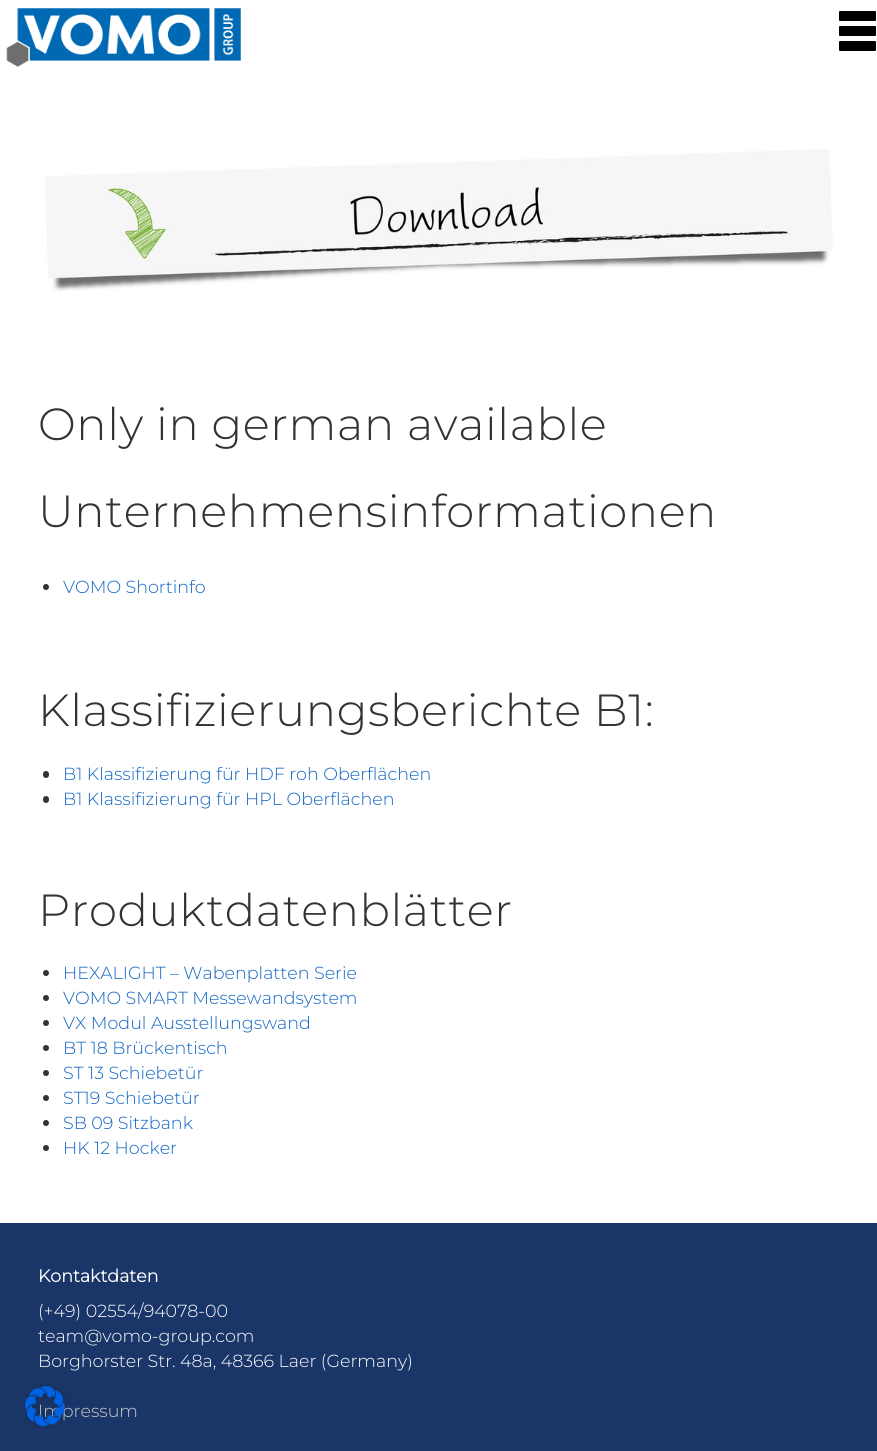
import math
import cairo

surface = cairo.ImageSurface(cairo.Format.RGB24, 877, 1451)
ctx = cairo.Context(surface)
options = cairo.FontOptions()
options.set_hint_metrics(cairo.HintMetrics.OFF)
options.set_hint_style(cairo.HintStyle.NONE)
ctx.set_font_options(options)
ctx.set_miter_limit(4)


def ink(r, g, b):
    ctx.set_source_rgb(r / 255, g / 255, b / 255)


def write(x, y, s, family, size, color, bold=False, italic=False):
    ctx.select_font_face(family, cairo.FontSlant.ITALIC if italic else cairo.FontSlant.NORMAL, cairo.FontWeight.BOLD if bold else cairo.FontWeight.NORMAL)
    ctx.set_font_size(size)
    ink(*color)
    ctx.move_to(x, y)
    ctx.show_text(s)


def write_spaced(x, y, s, letter, word):
    ctx.move_to(x, y)
    for ch in s:
        ctx.show_text(ch)
        ctx.rel_move_to(letter + word * (ch == ' '), 0)


def block(x, y, w, h, *color):
    ink(*color)
    ctx.rectangle(x, y, w, h)
    ctx.fill()


def round_path(x, y, w, h, r):
    ctx.new_sub_path()
    for i, (u, v) in enumerate([(x + w - r, y + h - r), (x + r, y + h - r), (x + r, y + r), (x + w - r, y + r)]):
        ctx.arc(u, v, r, i * math.pi / 2, (i + 1) * math.pi / 2)
    ctx.close_path()


def paste(path, x, y, w, h):
    ctx.save()
    ctx.set_source_surface(cairo.ImageSurface.create_from_png(path), x, y)
    ctx.rectangle(x, y, w, h)
    ctx.fill()
    ctx.restore()


s1 = dict(family="Montserrat Light", size=17.5, color=(16, 100, 196))
s2 = dict(family="Montserrat", size=17.5, color=(255, 255, 255), bold=True)
s3 = dict(family="Montserrat Light", size=17.5, color=(255, 255, 255))
s4 = dict(family="Montserrat Light", size=17.5, color=(204, 204, 204))

ink(255, 255, 255)
ctx.paint()
paste("pic1.png", 6, 8, 235, 59)
ink(0, 0, 0)
round_path(839, 11, 37, 10, 1)
ctx.fill()
round_path(839, 26, 37, 10, 1)
ctx.fill()
round_path(839, 41, 37, 10, 1)
ctx.fill()
paste("pic2.png", 45, 149, 788, 142)
ctx.select_font_face("Montserrat Light")
ctx.set_font_size(45)
ink(51, 51, 51)
write_spaced(38, 440, "Only in german available", 0.6, 0)
write_spaced(38, 527, "Unternehmensinformationen", 0.6, 0)
ctx.new_path()
ctx.arc(46, 587, 3, 0, 2 * math.pi)
ctx.fill()
write(63, 593, "VOMO Shortinfo", **s1)
ctx.set_font_size(45)
ink(51, 51, 51)
write_spaced(38, 726, "Klassifizierungsberichte B1:", 0.6, 0)
round_path(43, 771, 6, 7, 3)
ctx.fill()
write(63, 780, "B1 Klassifizierung für HDF roh Oberflächen", **s1)
ink(51, 51, 51)
round_path(43, 796, 6, 7, 3)
ctx.fill()
write(63, 805, "B1 Klassifizierung für HPL Oberflächen", **s1)
ctx.set_font_size(45)
ink(51, 51, 51)
write_spaced(38, 926, "Produktdatenblätter", 0.6, 0)
ctx.new_path()
ctx.arc(46, 973, 3, 0, 2 * math.pi)
ctx.fill()
write(63, 979, "HEXALIGHT – Wabenplatten Serie", **s1)
ink(51, 51, 51)
ctx.new_path()
ctx.arc(46, 998, 3, 0, 2 * math.pi)
ctx.fill()
write(63, 1004, "VOMO SMART Messewandsystem", **s1)
ink(51, 51, 51)
ctx.new_path()
ctx.arc(46, 1023, 3, 0, 2 * math.pi)
ctx.fill()
write(63, 1029, "VX Modul Ausstellungswand", **s1)
ink(51, 51, 51)
ctx.new_path()
ctx.arc(46, 1048, 3, 0, 2 * math.pi)
ctx.fill()
write(63, 1054, "BT 18 Brückentisch", **s1)
ink(51, 51, 51)
ctx.new_path()
ctx.arc(46, 1073, 3, 0, 2 * math.pi)
ctx.fill()
write(63, 1079, "ST 13 Schiebetür", **s1)
ink(51, 51, 51)
ctx.new_path()
ctx.arc(46, 1098, 3, 0, 2 * math.pi)
ctx.fill()
write(63, 1104, "ST19 Schiebetür", **s1)
ink(51, 51, 51)
ctx.new_path()
ctx.arc(46, 1123, 3, 0, 2 * math.pi)
ctx.fill()
write(63, 1129, "SB 09 Sitzbank", **s1)
ink(51, 51, 51)
ctx.new_path()
ctx.arc(46, 1148, 3, 0, 2 * math.pi)
ctx.fill()
write(63, 1154, "HK 12 Hocker", **s1)
block(0, 1223, 877, 228, 26, 54, 104)
write(38, 1282, "Kontaktdaten", **s2)
write(38, 1317, "(+49) 02554/94078-00", **s3)
write(38, 1342, "team@vomo-group.com", **s3)
write(38, 1367, "Borghorster Str. 48a, 48366 Laer (Germany)", **s3)
write(38, 1417, "Impressum", **s4)
paste("pic3.png", 22, 1383, 48, 46)
surface.write_to_png("screenshot.png")
